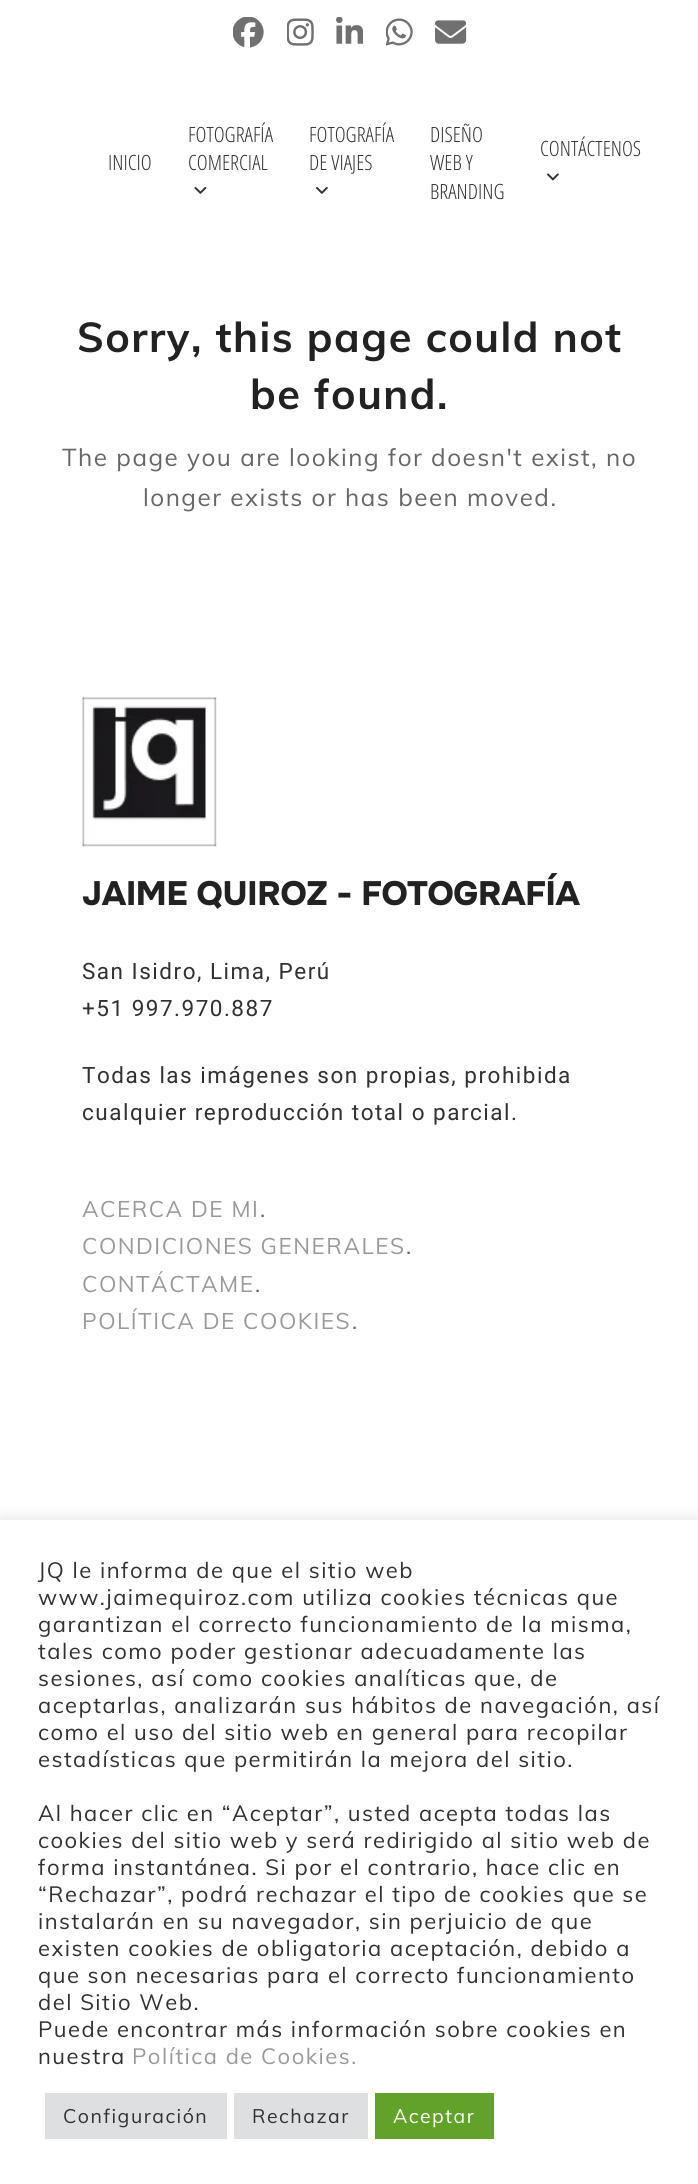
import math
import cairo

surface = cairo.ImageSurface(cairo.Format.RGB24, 698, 2184)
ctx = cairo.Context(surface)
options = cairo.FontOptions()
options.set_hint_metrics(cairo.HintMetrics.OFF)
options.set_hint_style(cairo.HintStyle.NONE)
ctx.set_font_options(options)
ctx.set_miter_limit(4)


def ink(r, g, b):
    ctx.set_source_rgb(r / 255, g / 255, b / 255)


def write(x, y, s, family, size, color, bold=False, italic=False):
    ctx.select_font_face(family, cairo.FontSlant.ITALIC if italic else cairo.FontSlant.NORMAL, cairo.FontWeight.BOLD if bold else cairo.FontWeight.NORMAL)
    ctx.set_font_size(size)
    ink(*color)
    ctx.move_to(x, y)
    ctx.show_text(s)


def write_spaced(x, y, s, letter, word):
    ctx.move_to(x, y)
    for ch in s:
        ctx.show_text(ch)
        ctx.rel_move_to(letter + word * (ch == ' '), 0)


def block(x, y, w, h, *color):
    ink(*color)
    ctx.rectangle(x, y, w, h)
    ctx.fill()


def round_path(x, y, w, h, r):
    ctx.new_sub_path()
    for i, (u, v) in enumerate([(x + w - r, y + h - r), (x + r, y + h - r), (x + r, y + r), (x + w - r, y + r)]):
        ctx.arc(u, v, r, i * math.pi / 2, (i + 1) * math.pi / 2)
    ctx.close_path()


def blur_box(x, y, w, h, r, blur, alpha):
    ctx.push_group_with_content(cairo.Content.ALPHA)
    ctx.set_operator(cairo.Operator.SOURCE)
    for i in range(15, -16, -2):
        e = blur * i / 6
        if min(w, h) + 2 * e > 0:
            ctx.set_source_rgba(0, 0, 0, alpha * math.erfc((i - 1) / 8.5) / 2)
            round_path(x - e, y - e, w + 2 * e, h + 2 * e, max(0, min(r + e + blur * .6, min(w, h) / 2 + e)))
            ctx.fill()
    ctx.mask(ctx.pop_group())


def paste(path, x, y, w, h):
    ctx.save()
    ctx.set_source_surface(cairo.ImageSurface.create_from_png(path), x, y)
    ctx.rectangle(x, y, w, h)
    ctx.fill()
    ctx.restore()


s1 = dict(family="Open Sans Condensed Light", size=21, color=(49, 49, 49))

ink(255, 255, 255)
ctx.paint()
paste("pic1.png", 233, 17, 31, 31)
paste("pic2.png", 287, 18, 27, 28)
paste("pic3.png", 336, 17, 27, 27)
paste("pic4.png", 386, 18, 27, 28)
paste("pic5.png", 435, 20, 32, 24)
write(188, 142, "FOTOGRAFÍA", **s1)
write(188, 170, "COMERCIAL", **s1)
paste("pic6.png", 194, 186, 13, 8)
write(309, 142, "FOTOGRAFÍA", **s1)
write(309, 170, "DE VIAJES", **s1)
paste("pic7.png", 316, 186, 12, 8)
write(430, 142, "DISEÑO", **s1)
write(430, 170, "WEB Y", **s1)
write(430, 199, "BRANDING", **s1)
write(540, 156, "CONTÁCTENOS", **s1)
paste("pic8.png", 547, 173, 12, 8)
write(108, 170, "INICIO", **s1)
ctx.select_font_face("Muli", cairo.FontSlant.NORMAL, cairo.FontWeight.BOLD)
ctx.set_font_size(41.5)
ink(34, 34, 34)
write_spaced(77, 352, "Sorry, this page could not", 1.5, 0)
write_spaced(250, 409, "be found.", 1.5, 0)
ctx.select_font_face("Muli")
ctx.set_font_size(24.25)
ink(102, 102, 102)
write_spaced(62, 466, "The page you are looking for doesn't exist, no", 1.5, 0)
write_spaced(143, 506, "longer exists or has been moved.", 1.5, 0)
paste("pic9.png", 82, 697, 135, 150)
ctx.select_font_face("Onest ExtraBold")
ctx.set_font_size(33.75)
ink(34, 34, 34)
write_spaced(82, 905, "JAIME QUIROZ - FOTOGRAFÍA", -0.3, 0)
ctx.select_font_face("Roboto")
ctx.set_font_size(22.5)
ink(49, 49, 49)
write_spaced(82, 979, "San Isidro, Lima, Perú", 1.5, 0)
write_spaced(82, 1016, "+51 997.970.887", 1.5, 0)
write_spaced(82, 1083, "Todas las imágenes son propias, prohibida", 1.5, 0)
write_spaced(82, 1120, "cualquier reproducción total o parcial.", 1.5, 0)
ctx.select_font_face("Muli")
ink(153, 153, 153)
write_spaced(82, 1217, "ACERCA DE MI", 1.5, 0)
ink(102, 102, 102)
write_spaced(260, 1217, ".", 1.5, 0)
ink(153, 153, 153)
write_spaced(82, 1254, "CONDICIONES GENERALES", 1.5, 0)
ink(102, 102, 102)
write_spaced(406, 1254, ".", 1.5, 0)
ink(153, 153, 153)
write_spaced(82, 1292, "CONTÁCTAME", 1.5, 0)
ink(102, 102, 102)
write_spaced(255, 1292, ".", 1.5, 0)
ink(153, 153, 153)
write_spaced(82, 1329, "POLÍTICA DE COOKIES", 1.5, 0)
ink(102, 102, 102)
write_spaced(352, 1329, ".", 1.5, 0)
ctx.save()
ctx.rectangle(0, 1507, 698, 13)
ctx.clip()
ink(172, 171, 171)
blur_box(0, 1518, 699, 665, 0, 7.5, 0.3)
ctx.restore()
ctx.set_font_size(22)
ink(49, 49, 49)
write_spaced(38, 1578, "JQ le informa de que el sitio web", 1.5, 0)
write_spaced(38, 1605, "www.jaimequiroz.com utiliza cookies técnicas que", 1.5, 0)
write_spaced(38, 1632, "garantizan el correcto funcionamiento de la misma,", 1.5, 0)
write_spaced(38, 1659, "tales como poder gestionar adecuadamente las", 1.5, 0)
write_spaced(38, 1686, "sesiones, así como cookies analíticas que, de", 1.5, 0)
write_spaced(38, 1713, "aceptarlas, analizarán sus hábitos de navegación, así", 1.5, 0)
write_spaced(38, 1740, "como el uso del sitio web en general para recopilar", 1.5, 0)
write_spaced(38, 1767, "estadísticas que permitirán la mejora del sitio.", 1.5, 0)
write_spaced(38, 1821, "Al hacer clic en “Aceptar”, usted acepta todas las", 1.5, 0)
write_spaced(38, 1848, "cookies del sitio web y será redirigido al sitio web de", 1.5, 0)
write_spaced(38, 1875, "forma instantánea. Si por el contrario, hace clic en", 1.5, 0)
write_spaced(38, 1902, "“Rechazar”, podrá rechazar el tipo de cookies que se", 1.5, 0)
write_spaced(38, 1929, "instalarán en su navegador, sin perjuicio de que", 1.5, 0)
write_spaced(38, 1956, "existen cookies de obligatoria aceptación, debido a", 1.5, 0)
write_spaced(38, 1983, "que son necesarias para el correcto funcionamiento", 1.5, 0)
write_spaced(38, 2010, "del Sitio Web.", 1.5, 0)
write_spaced(38, 2037, "Puede encontrar más información sobre cookies en", 1.5, 0)
write_spaced(38, 2064, "nuestra", 1.5, 0)
ink(153, 153, 153)
write_spaced(132, 2064, "Política de Cookies.", 1.5, 0)
block(45, 2093, 182, 46, 222, 223, 224)
ctx.set_font_size(19.5)
ink(49, 49, 49)
write_spaced(63, 2123, "Configuración", 1.5, 0)
block(234, 2093, 134, 46, 222, 223, 224)
ink(49, 49, 49)
write_spaced(252, 2123, "Rechazar", 1.5, 0)
block(375, 2093, 119, 46, 97, 162, 41)
ink(255, 255, 255)
write_spaced(393, 2123, "Aceptar", 1.5, 0)
surface.write_to_png("screenshot.png")
